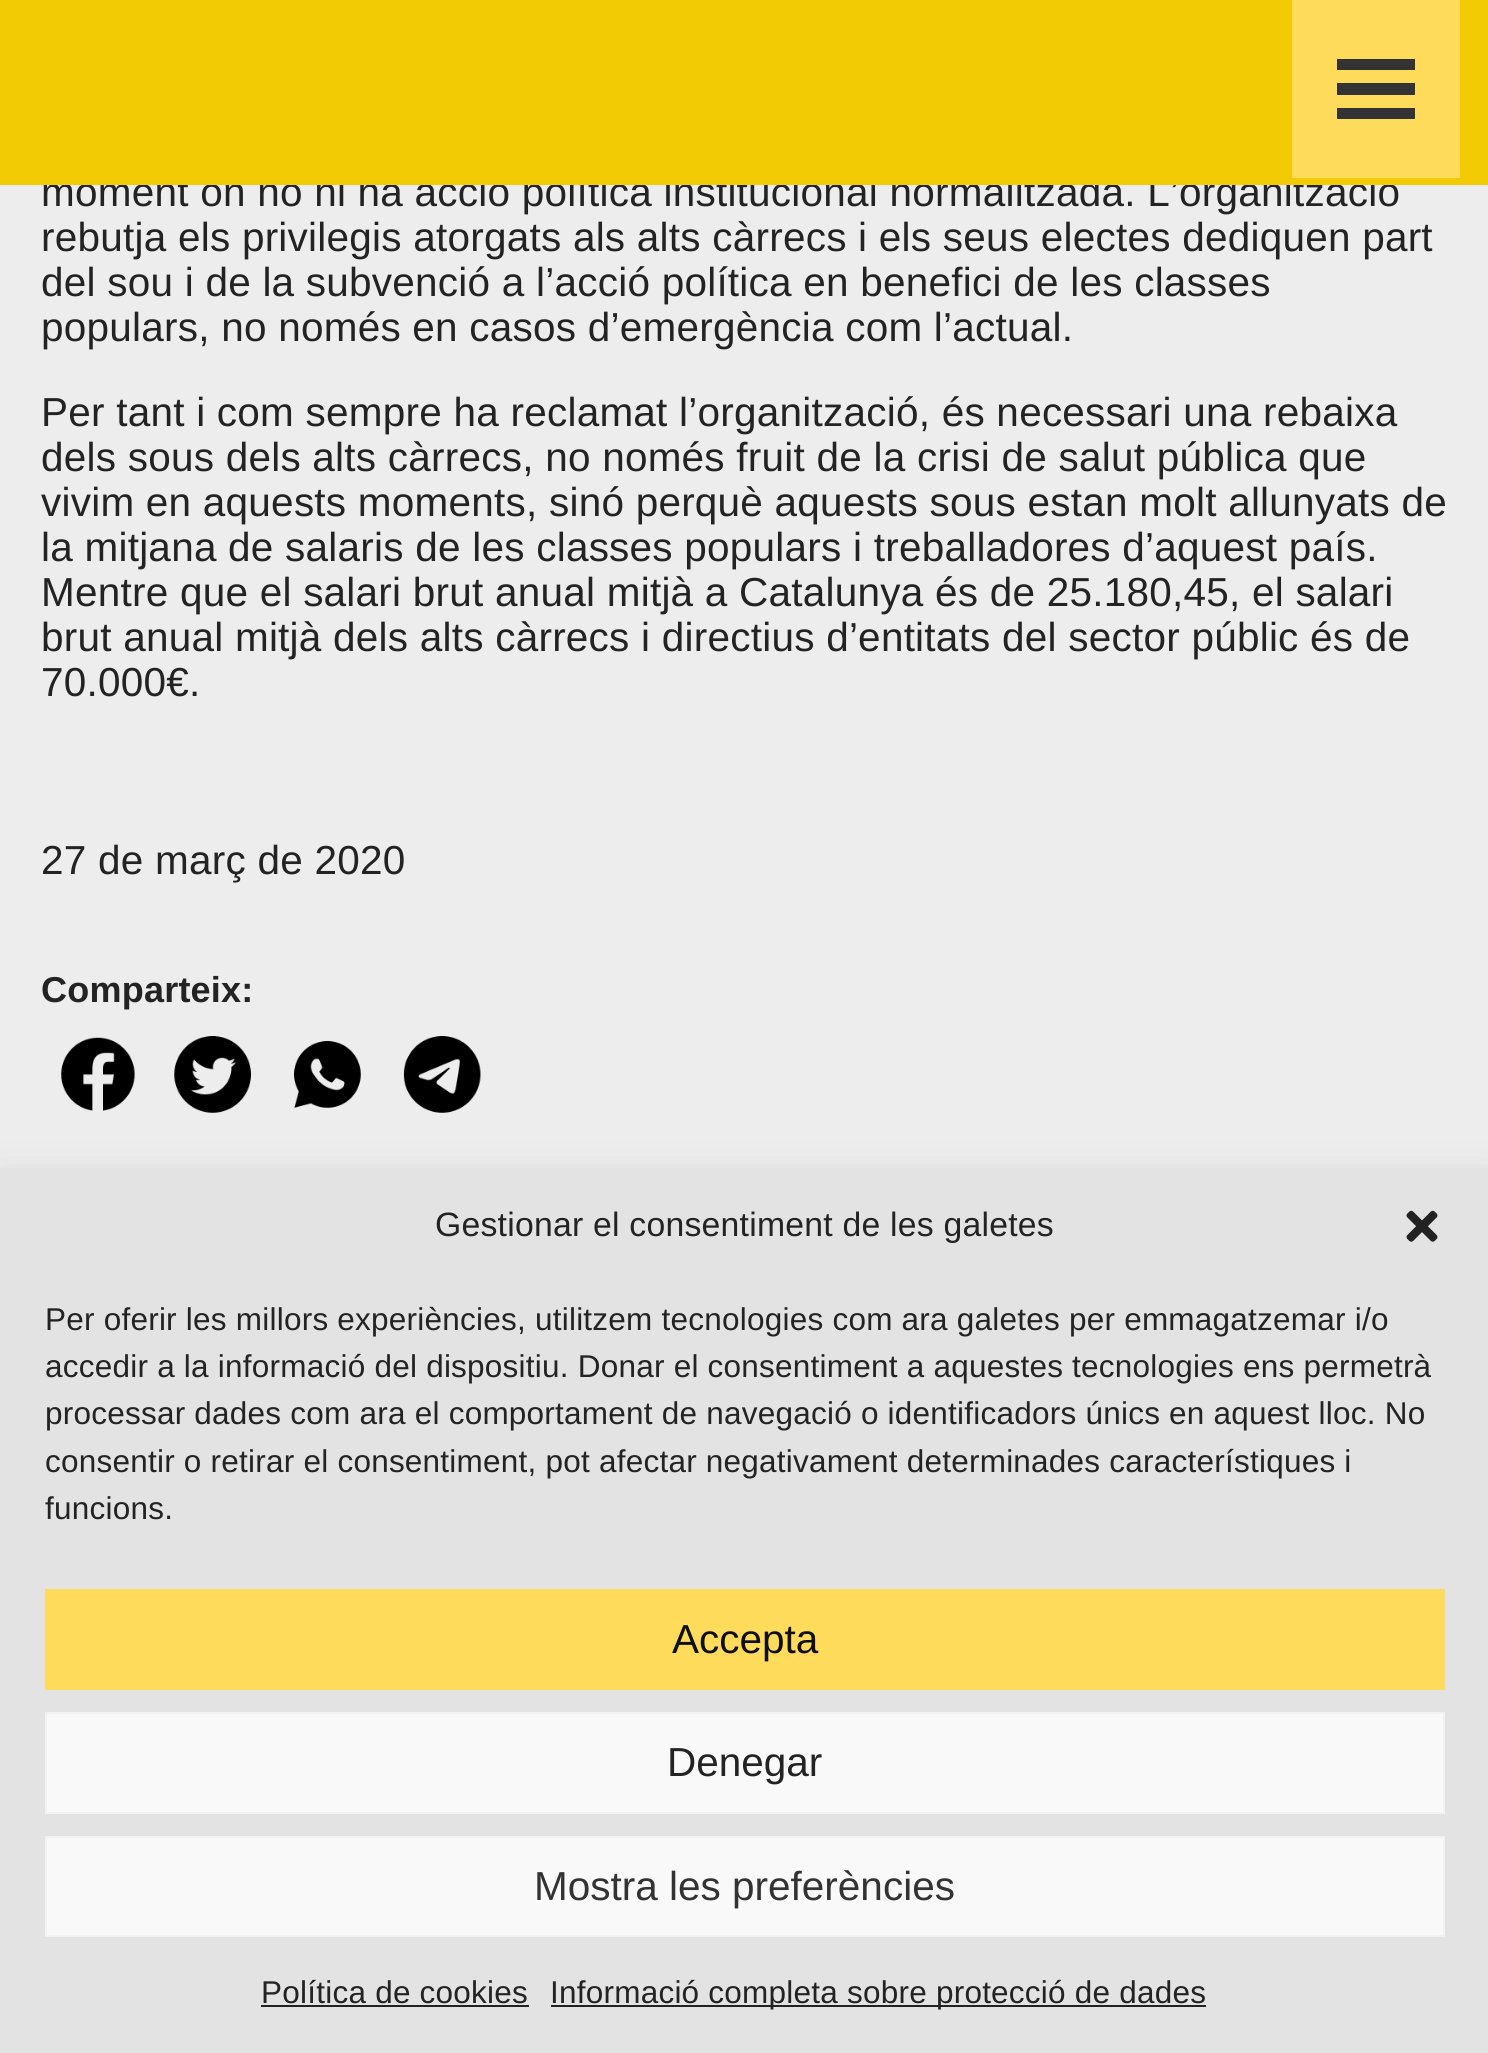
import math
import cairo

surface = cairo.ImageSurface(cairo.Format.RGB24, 1488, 2053)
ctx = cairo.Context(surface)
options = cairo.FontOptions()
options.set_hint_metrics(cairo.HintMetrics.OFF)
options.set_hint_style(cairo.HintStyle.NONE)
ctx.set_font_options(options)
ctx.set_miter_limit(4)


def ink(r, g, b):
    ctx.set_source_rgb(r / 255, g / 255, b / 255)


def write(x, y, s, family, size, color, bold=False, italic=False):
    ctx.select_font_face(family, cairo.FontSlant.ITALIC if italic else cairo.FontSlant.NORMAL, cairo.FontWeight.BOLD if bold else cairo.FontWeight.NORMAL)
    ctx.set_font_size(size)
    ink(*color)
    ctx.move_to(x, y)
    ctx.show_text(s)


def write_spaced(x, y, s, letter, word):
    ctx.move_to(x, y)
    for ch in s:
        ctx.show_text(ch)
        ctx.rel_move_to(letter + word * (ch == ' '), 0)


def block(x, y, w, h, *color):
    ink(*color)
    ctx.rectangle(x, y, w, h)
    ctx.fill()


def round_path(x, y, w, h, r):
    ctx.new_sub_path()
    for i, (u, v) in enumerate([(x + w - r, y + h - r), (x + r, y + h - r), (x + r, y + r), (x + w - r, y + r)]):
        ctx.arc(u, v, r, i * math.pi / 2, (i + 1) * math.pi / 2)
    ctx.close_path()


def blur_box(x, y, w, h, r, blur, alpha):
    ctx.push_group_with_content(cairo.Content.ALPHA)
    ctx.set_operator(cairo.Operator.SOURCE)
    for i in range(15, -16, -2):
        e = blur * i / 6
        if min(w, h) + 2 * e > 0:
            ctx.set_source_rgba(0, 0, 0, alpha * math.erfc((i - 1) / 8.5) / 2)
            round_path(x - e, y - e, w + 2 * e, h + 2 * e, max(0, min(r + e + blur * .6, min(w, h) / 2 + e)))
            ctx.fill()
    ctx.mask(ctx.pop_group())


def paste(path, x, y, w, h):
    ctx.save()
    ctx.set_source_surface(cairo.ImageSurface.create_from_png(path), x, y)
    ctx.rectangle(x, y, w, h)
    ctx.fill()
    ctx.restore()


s1 = dict(family="Liberation Sans", size=40.5, color=(15, 15, 15))
s2 = dict(family="Liberation Sans", size=40.5, color=(35, 35, 35))
s3 = dict(family="Liberation Sans", size=40.5, color=(51, 51, 51))

ink(237, 237, 237)
ctx.paint()
ctx.select_font_face("Liberation Sans")
ctx.set_font_size(40.5)
ink(35, 35, 35)
write_spaced(41, 206, "moment on no hi ha acció política institucional normalitzada. L’organització", 0.23, 0)
block(0, 0, 1488, 185, 242, 203, 5)
block(1292, 0, 168, 178, 255, 219, 92)
block(1337, 59, 78, 11, 51, 51, 51)
block(1337, 83, 78, 12, 51, 51, 51)
block(1337, 108, 78, 11, 51, 51, 51)
ink(35, 35, 35)
write_spaced(41, 251, "rebutja els privilegis atorgats als alts càrrecs i els seus electes dediquen part", 0.23, 0)
write_spaced(41, 296, "del sou i de la subvenció a l’acció política en benefici de les classes", 0.23, 0)
write_spaced(41, 341, "populars, no només en casos d’emergència com l’actual.", 0.23, 0)
write_spaced(41, 426, "Per tant i com sempre ha reclamat l’organització, és necessari una rebaixa", 0.23, 0)
write_spaced(41, 471, "dels sous dels alts càrrecs, no només fruit de la crisi de salut pública que", 0.23, 0)
write_spaced(41, 516, "vivim en aquests moments, sinó perquè aquests sous estan molt allunyats de", 0.23, 0)
write_spaced(41, 561, "la mitjana de salaris de les classes populars i treballadores d’aquest país.", 0.23, 0)
write_spaced(41, 606, "Mentre que el salari brut anual mitjà a Catalunya és de 25.180,45, el salari", 0.23, 0)
write_spaced(41, 651, "brut anual mitjà dels alts càrrecs i directius d’entitats del sector públic és de", 0.23, 0)
write_spaced(41, 696, "70.000€.", 0.23, 0)
write_spaced(41, 874, "27 de març de 2020", 0.23, 0)
ctx.select_font_face("Liberation Sans", cairo.FontSlant.NORMAL, cairo.FontWeight.BOLD)
ctx.set_font_size(36)
write_spaced(41, 1002, "Comparteix:", 0.23, 0)
paste("pic1.png", 61, 1037, 74, 74)
paste("pic2.png", 174, 1036, 77, 77)
paste("pic3.png", 294, 1041, 67, 67)
paste("pic4.png", 403, 1036, 78, 77)
ink(0, 0, 0)
blur_box(0, 1190, 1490, 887, 0, 22.5, 0.19)
block(0, 1168, 1488, 885, 227, 227, 227)
ctx.select_font_face("Liberation Sans")
ctx.set_font_size(33.75)
ink(35, 35, 35)
write_spaced(435, 1236, "Gestionar el consentiment de les galetes", 0.23, 0)
paste("pic5.png", 1406, 1210, 32, 32)
ctx.set_font_size(31.5)
write_spaced(45, 1330, "Per oferir les millors experiències, utilitzem tecnologies com ara galetes per emmagatzemar i/o", 0.23, 0)
write_spaced(45, 1377, "accedir a la informació del dispositiu. Donar el consentiment a aquestes tecnologies ens permetrà", 0.23, 0)
write_spaced(45, 1424, "processar dades com ara el comportament de navegació o identificadors únics en aquest lloc. No", 0.23, 0)
write_spaced(45, 1472, "consentir o retirar el consentiment, pot afectar negativament determinades característiques i", 0.23, 0)
write_spaced(45, 1519, "funcions.", 0.23, 0)
block(45, 1589, 1400, 101, 255, 219, 92)
write(672, 1653, "Accepta", **s1)
ink(249, 249, 249)
ctx.rectangle(46, 1713, 1398, 100)
ctx.fill_preserve()
ink(242, 242, 242)
ctx.stroke()
write(667, 1776, "Denegar", **s2)
ink(249, 249, 249)
ctx.rectangle(46, 1837, 1398, 99)
ctx.fill_preserve()
ink(242, 242, 242)
ctx.stroke()
write(534, 1900, "Mostra les preferències", **s3)
ctx.set_font_size(31.5)
ink(35, 35, 35)
write_spaced(261, 2003, "Política de cookies", 0.23, 0)
block(261, 2005, 268, 2, 34, 34, 34)
block(551, 2005, 655, 2, 34, 34, 34)
ink(35, 35, 35)
write_spaced(550, 2003, "Informació completa sobre protecció de dades", 0.23, 0)
surface.write_to_png("screenshot.png")
